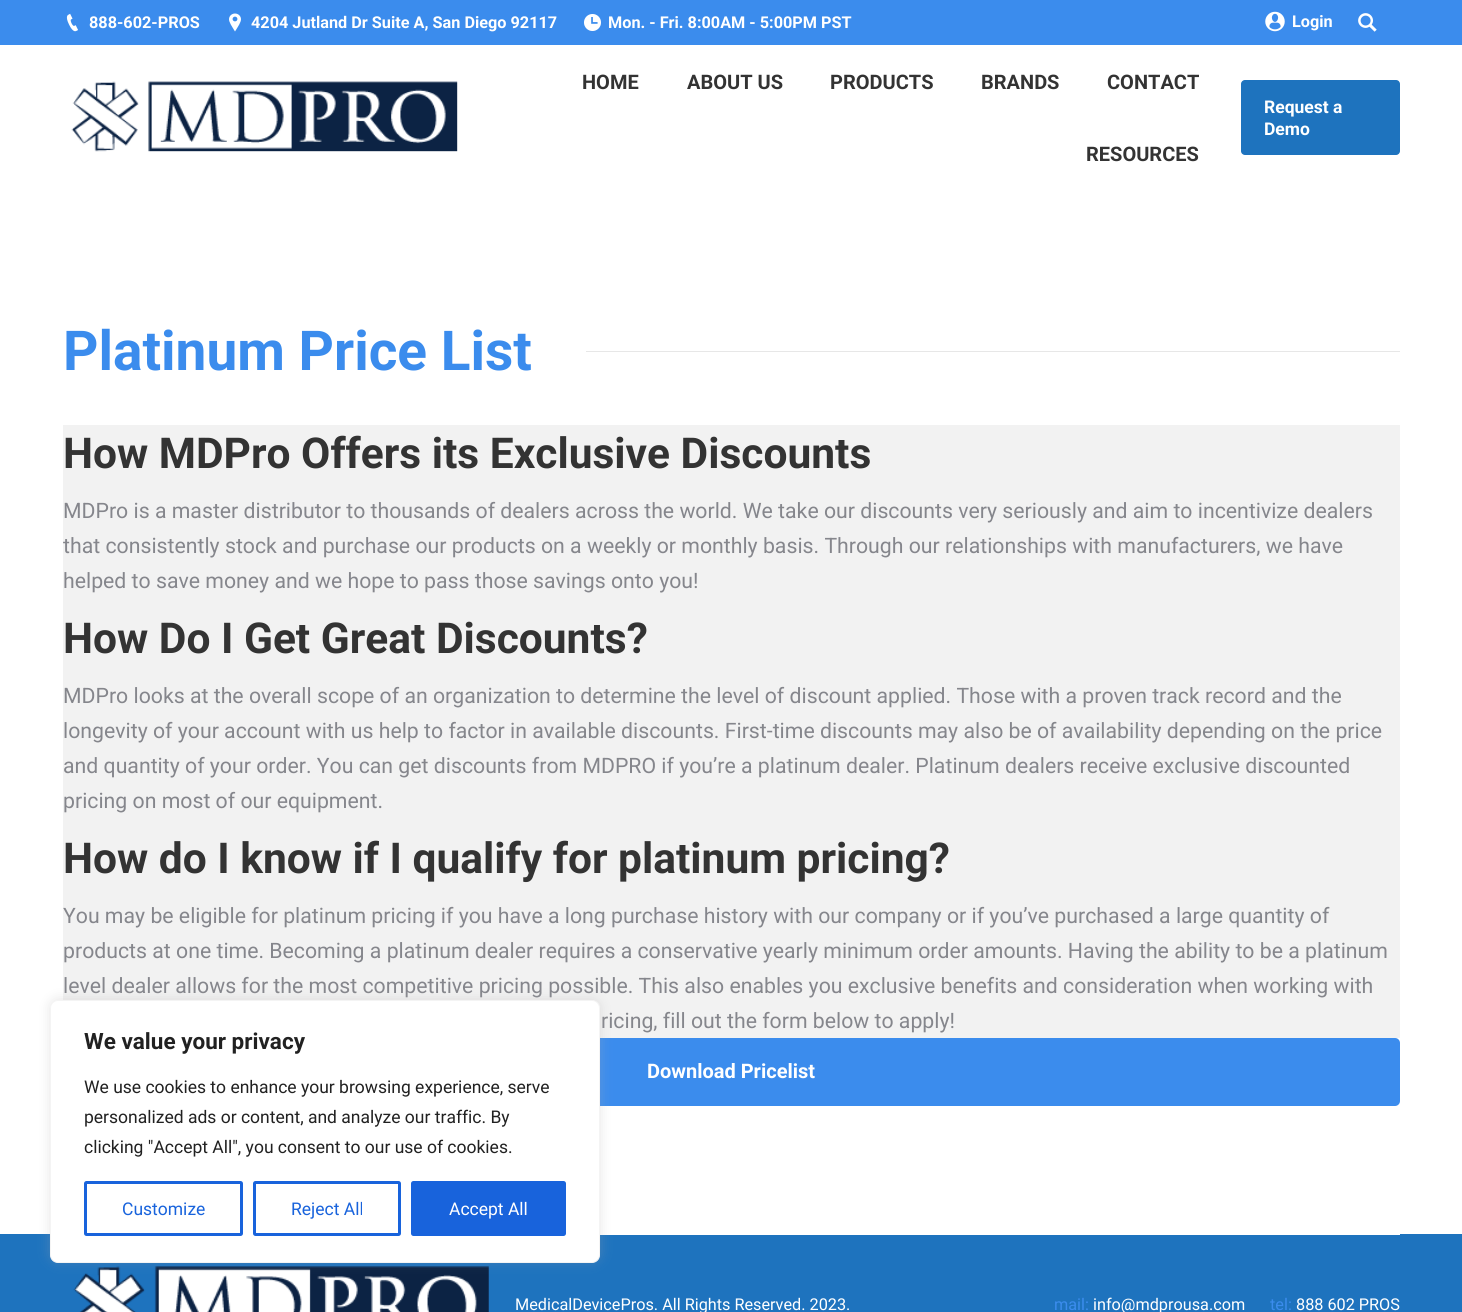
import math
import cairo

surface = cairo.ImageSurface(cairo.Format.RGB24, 1462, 1312)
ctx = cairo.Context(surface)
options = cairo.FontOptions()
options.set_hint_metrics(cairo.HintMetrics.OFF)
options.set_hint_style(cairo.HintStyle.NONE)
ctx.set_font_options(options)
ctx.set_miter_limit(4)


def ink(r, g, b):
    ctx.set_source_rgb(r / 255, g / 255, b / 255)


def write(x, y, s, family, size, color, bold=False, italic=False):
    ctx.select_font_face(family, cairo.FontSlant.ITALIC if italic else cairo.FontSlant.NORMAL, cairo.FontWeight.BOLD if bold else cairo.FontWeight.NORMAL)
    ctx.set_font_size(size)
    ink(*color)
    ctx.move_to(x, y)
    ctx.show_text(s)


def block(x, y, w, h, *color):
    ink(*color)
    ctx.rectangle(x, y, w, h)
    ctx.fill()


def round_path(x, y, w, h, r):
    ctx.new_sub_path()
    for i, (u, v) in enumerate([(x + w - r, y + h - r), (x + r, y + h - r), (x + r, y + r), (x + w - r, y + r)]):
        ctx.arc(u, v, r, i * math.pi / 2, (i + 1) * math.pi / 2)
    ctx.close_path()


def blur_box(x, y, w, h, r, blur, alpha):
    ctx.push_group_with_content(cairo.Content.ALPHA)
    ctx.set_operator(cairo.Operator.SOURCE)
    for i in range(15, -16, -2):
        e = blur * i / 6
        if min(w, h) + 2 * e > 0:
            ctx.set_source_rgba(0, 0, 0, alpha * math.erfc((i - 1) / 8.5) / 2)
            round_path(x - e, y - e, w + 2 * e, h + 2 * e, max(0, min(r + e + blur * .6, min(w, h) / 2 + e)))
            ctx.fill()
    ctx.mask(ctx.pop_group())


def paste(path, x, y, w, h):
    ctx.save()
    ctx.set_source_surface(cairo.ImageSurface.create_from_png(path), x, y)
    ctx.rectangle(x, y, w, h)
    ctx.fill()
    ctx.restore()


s1 = dict(family="Roboto", size=16.25, color=(255, 255, 255), bold=True)
s2 = dict(family="Roboto", size=20, color=(51, 51, 51), bold=True)
s3 = dict(family="Roboto", size=17.5, color=(255, 255, 255), bold=True)
s4 = dict(family="Roboto", size=55, color=(59, 140, 237), bold=True)
s5 = dict(family="Roboto", size=42.5, color=(51, 51, 51), bold=True)
s6 = dict(family="Roboto", size=21.25, color=(133, 134, 140))
s7 = dict(family="Roboto", size=20, color=(255, 255, 255), bold=True)
s8 = dict(family="Roboto", size=16.25, color=(255, 255, 255))
s9 = dict(family="Roboto", size=16.25, color=(59, 140, 237))
s10 = dict(family="Roboto", size=22.5, color=(33, 33, 33), bold=True)
s11 = dict(family="Roboto", size=17.5, color=(33, 33, 33))
s12 = dict(family="Roboto", size=17.5, color=(24, 99, 220))
s13 = dict(family="Roboto", size=17.5, color=(255, 255, 255))

ink(255, 255, 255)
ctx.paint()
block(0, 0, 1462, 45, 59, 140, 237)
paste("pic1.png", 66, 13, 12, 19)
write(89, 28, "888-602-PROS", **s1)
paste("pic2.png", 229, 13, 12, 19)
write(251, 28, "4204 Jutland Dr Suite A, San Diego 92117", **s1)
paste("pic3.png", 584, 14, 17, 17)
write(608, 28, "Mon. - Fri. 8:00AM - 5:00PM PST", **s1)
paste("pic4.png", 1265, 11, 20, 21)
write(1292, 27, "Login", **s1)
paste("pic5.png", 1358, 13, 19, 19)
paste("pic6.png", 71, 81, 387, 71)
write(582, 89, "HOME", **s2)
write(687, 89, "ABOUT US", **s2)
write(830, 89, "PRODUCTS", **s2)
write(981, 89, "BRANDS", **s2)
write(1107, 89, "CONTACT", **s2)
write(1086, 161, "RESOURCES", **s2)
ink(30, 115, 190)
round_path(1241, 80, 159, 75, 4)
ctx.fill()
write(1264, 113, "Request a", **s3)
write(1264, 135, "Demo", **s3)
write(63, 370, "Platinum Price List", **s4)
block(586, 351, 814, 1, 231, 231, 231)
block(63, 425, 1337, 613, 242, 242, 242)
write(63, 468, "How MDPro Offers its Exclusive Discounts", **s5)
write(63, 518, "MDPro is a master distributor to thousands of dealers across the world. We take our discounts very seriously and aim to incentivize dealers", **s6)
write(63, 553, "that consistently stock and purchase our products on a weekly or monthly basis. Through our relationships with manufacturers, we have", **s6)
write(63, 588, "helped to save money and we hope to pass those savings onto you!", **s6)
write(63, 653, "How Do I Get Great Discounts?", **s5)
write(63, 703, "MDPro looks at the overall scope of an organization to determine the level of discount applied. Those with a proven track record and the", **s6)
write(63, 738, "longevity of your account with us help to factor in available discounts. First-time discounts may also be of availability depending on the price", **s6)
write(63, 773, "and quantity of your order. You can get discounts from MDPRO if you’re a platinum dealer. Platinum dealers receive exclusive discounted", **s6)
write(63, 808, "pricing on most of our equipment.", **s6)
write(63, 873, "How do I know if I qualify for platinum pricing?", **s5)
write(63, 923, "You may be eligible for platinum pricing if you have a long purchase history with our company or if you’ve purchased a large quantity of", **s6)
write(63, 958, "products at one time. Becoming a platinum dealer requires a conservative yearly minimum order amounts. Having the ability to be a platinum", **s6)
write(63, 993, "level dealer allows for the most competitive pricing possible. This also enables you exclusive benefits and consideration when working with", **s6)
write(601, 1028, "ricing, fill out the form below to apply!", **s6)
ink(59, 140, 237)
round_path(63, 1038, 1337, 68, 5)
ctx.fill()
write(647, 1078, "Download Pricelist", **s7)
block(0, 1234, 1462, 78, 30, 115, 190)
block(600, 1234, 800, 1, 255, 255, 255)
paste("pic7.png", 73, 1266, 416, 46)
write(515, 1310, "MedicalDevicePros. All Rights Reserved. 2023.", **s8)
write(1054, 1310, "mail:", **s9)
write(1093, 1310, "info@mdprousa.com", **s8)
write(1270, 1310, "tel:", **s9)
write(1296, 1310, "888 602 PROS", **s8)
ink(172, 171, 171)
blur_box(50, 999, 550, 262, 8, 6, 0.3)
ink(255, 255, 255)
round_path(50.5, 1000.5, 549, 262, 7.5)
ctx.fill_preserve()
ink(244, 244, 244)
ctx.set_line_width(1)
ctx.stroke()
write(84, 1049, "We value your privacy", **s10)
write(84, 1093, "We use cookies to enhance your browsing experience, serve", **s11)
write(84, 1123, "personalized ads or content, and analyze our traffic. By", **s11)
write(84, 1153, "clicking \"Accept All\", you consent to our use of cookies.", **s11)
round_path(85.5, 1182.5, 156, 52, 1)
ink(24, 99, 220)
ctx.set_line_width(3)
ctx.stroke()
write(122, 1215, "Customize", **s12)
round_path(254.5, 1182.5, 145, 52, 1)
ctx.stroke()
write(291, 1215, "Reject All", **s12)
round_path(412.5, 1182.5, 152, 52, 1)
ctx.fill_preserve()
ctx.stroke()
write(449, 1215, "Accept All", **s13)
surface.write_to_png("screenshot.png")
